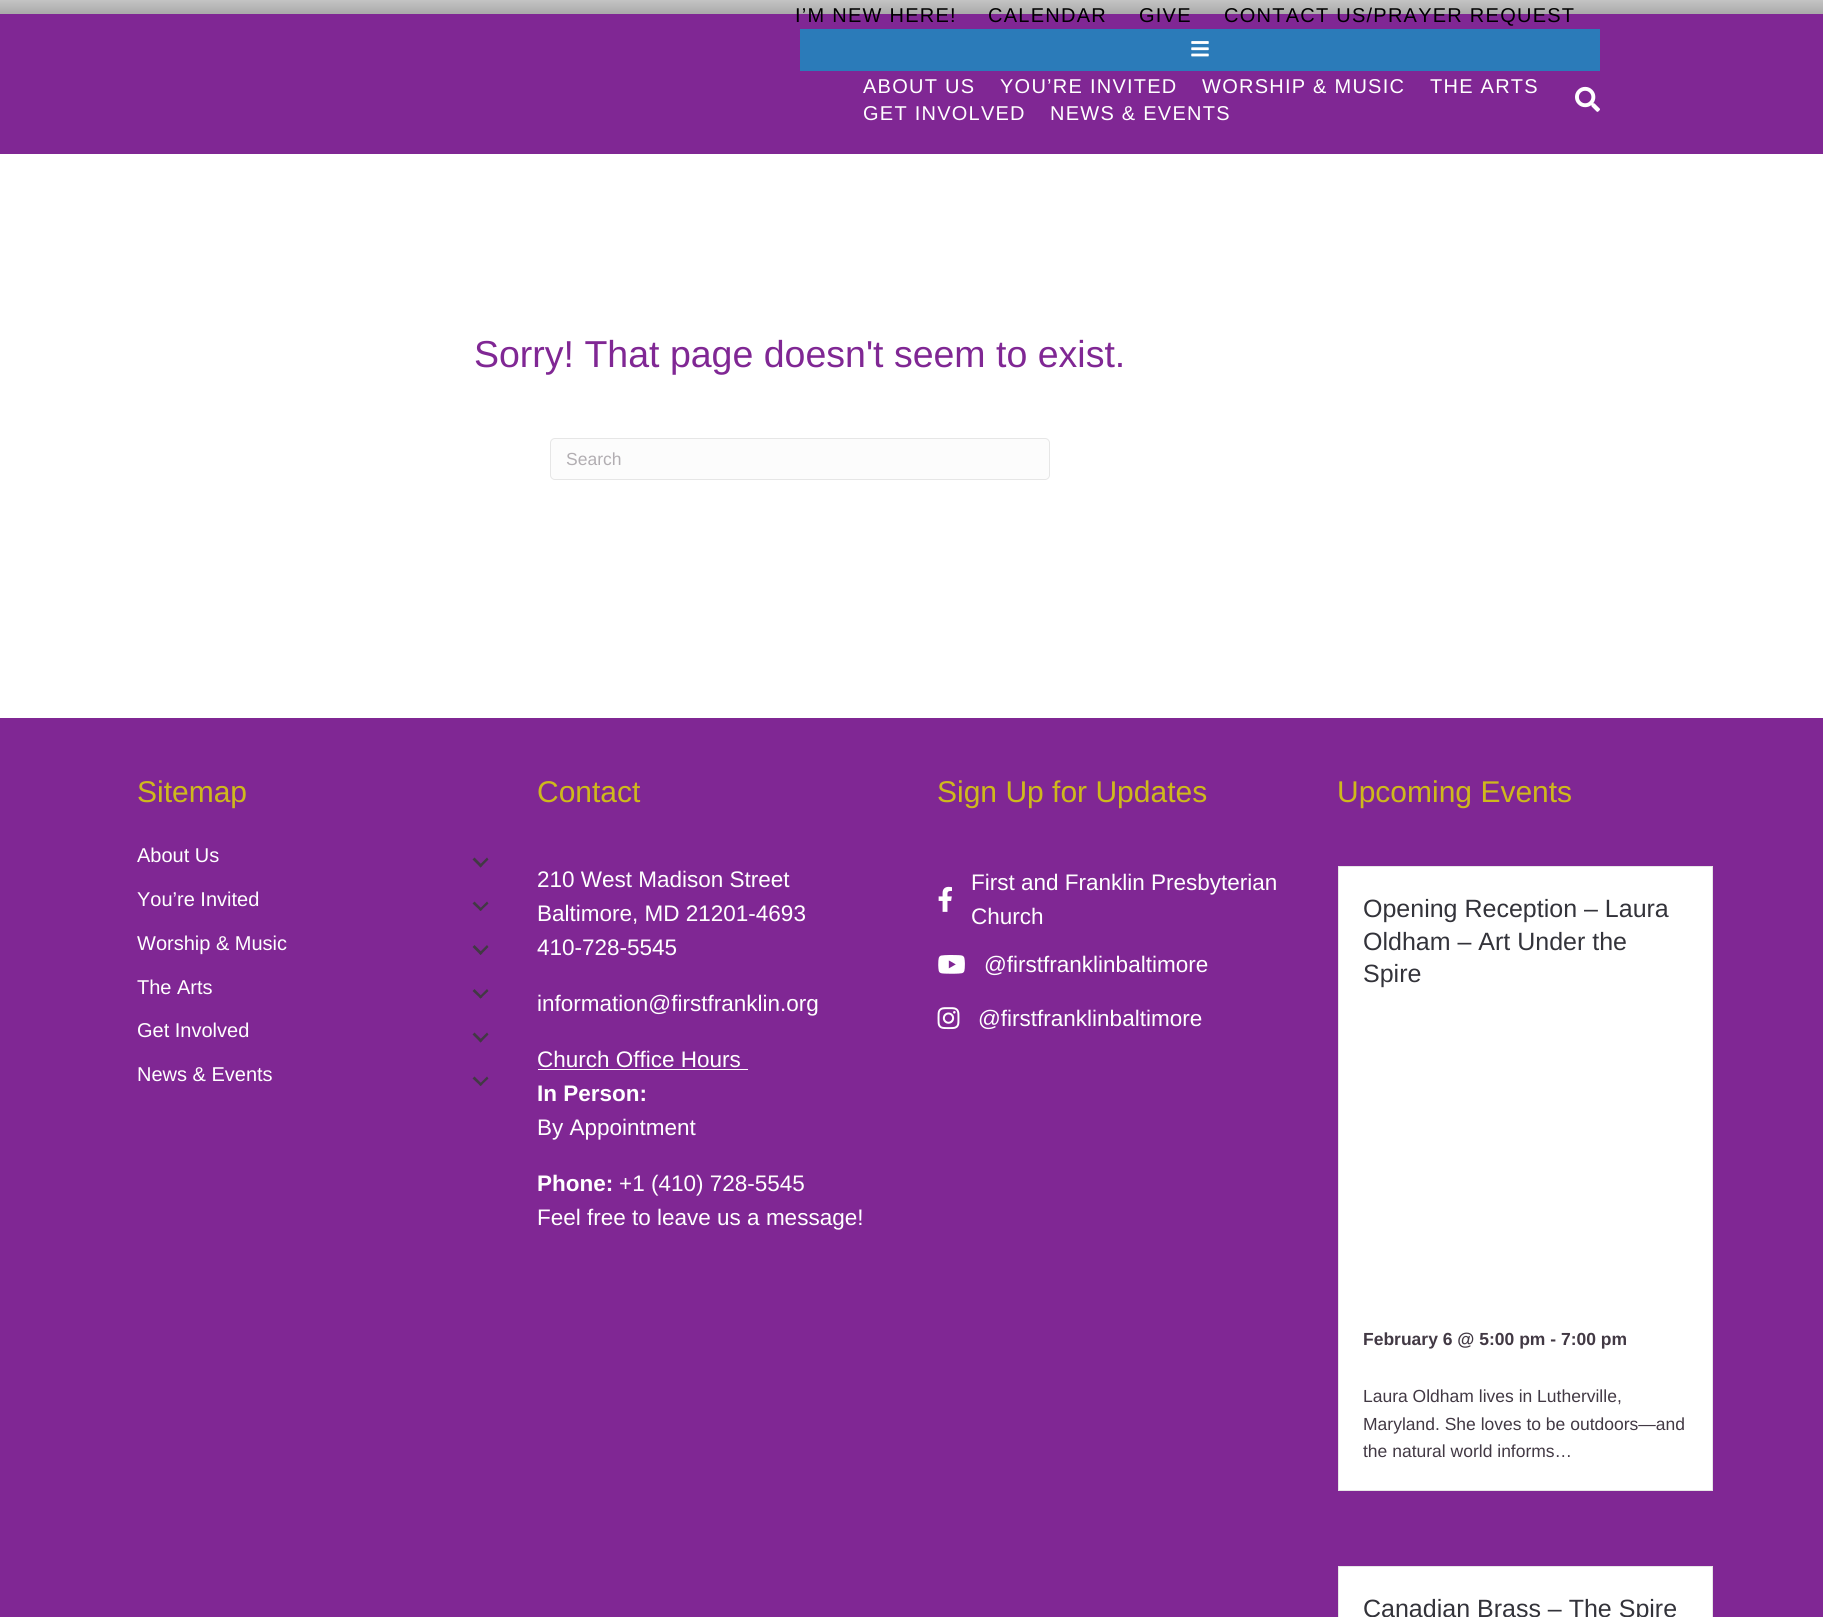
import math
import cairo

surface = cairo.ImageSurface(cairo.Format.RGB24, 1823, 1617)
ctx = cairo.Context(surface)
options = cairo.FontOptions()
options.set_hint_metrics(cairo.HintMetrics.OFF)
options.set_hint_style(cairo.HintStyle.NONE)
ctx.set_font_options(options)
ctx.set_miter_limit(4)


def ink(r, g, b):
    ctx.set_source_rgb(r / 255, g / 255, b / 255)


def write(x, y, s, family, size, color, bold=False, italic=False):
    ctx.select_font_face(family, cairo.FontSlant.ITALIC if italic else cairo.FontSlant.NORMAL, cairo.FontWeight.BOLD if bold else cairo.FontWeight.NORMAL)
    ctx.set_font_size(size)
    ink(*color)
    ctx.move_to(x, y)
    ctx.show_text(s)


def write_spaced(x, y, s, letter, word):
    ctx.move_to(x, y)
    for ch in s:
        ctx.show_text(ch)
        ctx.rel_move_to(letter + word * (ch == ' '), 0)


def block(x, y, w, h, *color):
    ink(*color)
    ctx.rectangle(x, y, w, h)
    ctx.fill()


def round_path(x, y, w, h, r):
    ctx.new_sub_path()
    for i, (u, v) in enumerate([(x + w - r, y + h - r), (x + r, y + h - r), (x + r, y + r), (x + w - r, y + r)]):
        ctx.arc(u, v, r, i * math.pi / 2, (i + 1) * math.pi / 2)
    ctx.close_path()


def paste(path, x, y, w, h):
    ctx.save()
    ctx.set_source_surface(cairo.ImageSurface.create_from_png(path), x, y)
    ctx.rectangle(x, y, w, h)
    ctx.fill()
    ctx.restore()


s1 = dict(family="Liberation Sans", size=37.5, color=(128, 39, 148))
s2 = dict(family="Liberation Sans", size=17.5, color=(178, 174, 178))
s3 = dict(family="Liberation Sans", size=30, color=(206, 185, 28))
s4 = dict(family="Liberation Sans", size=20, color=(255, 255, 255))
s5 = dict(family="Liberation Sans", size=22.5, color=(255, 255, 255))
s6 = dict(family="Liberation Sans", size=22.5, color=(255, 255, 255), bold=True)
s7 = dict(family="Liberation Sans", size=25, color=(51, 51, 58))
s8 = dict(family="Liberation Sans", size=17.5, color=(66, 57, 68), bold=True)
s9 = dict(family="Liberation Sans", size=17.5, color=(66, 57, 68))

ink(255, 255, 255)
ctx.paint()
gradient = cairo.LinearGradient(912, 0, 912, 13)
gradient.add_color_stop_rgba(0, 0.769, 0.769, 0.769, 1)
gradient.add_color_stop_rgba(1, 0.671, 0.671, 0.671, 1)
ctx.set_source(gradient)
ctx.rectangle(0, 0, 1823, 13)
ctx.fill()
block(0, 13, 1823, 1, 171, 171, 171)
block(0, 14, 1823, 140, 128, 39, 148)
ctx.select_font_face("Liberation Sans")
ctx.set_font_size(20)
ink(0, 0, 0)
write_spaced(795, 22, "I’M NEW HERE!", 1.25, 0)
write_spaced(988, 22, "CALENDAR", 1.25, 0)
write_spaced(1139, 22, "GIVE", 1.25, 0)
write_spaced(1224, 22, "CONTACT US/PRAYER REQUEST", 1.25, 0)
block(800, 29, 800, 42, 43, 123, 185)
paste("pic1.png", 1191, 41, 18, 16)
ink(255, 255, 255)
write_spaced(863, 93, "ABOUT US", 1.25, 0)
write_spaced(1000, 93, "YOU’RE INVITED", 1.25, 0)
write_spaced(1202, 93, "WORSHIP & MUSIC", 1.25, 0)
write_spaced(1430, 93, "THE ARTS", 1.25, 0)
write_spaced(863, 120, "GET INVOLVED", 1.25, 0)
write_spaced(1050, 120, "NEWS & EVENTS", 1.25, 0)
paste("pic2.png", 1575, 86, 25, 26)
write(474, 367, "Sorry! That page doesn't seem to exist.", **s1)
ink(252, 252, 252)
round_path(550.5, 438.5, 499, 41, 4.5)
ctx.fill_preserve()
ink(230, 230, 230)
ctx.set_line_width(1)
ctx.stroke()
write(566, 465, "Search", **s2)
block(0, 718, 1823, 899, 128, 39, 148)
write(137, 802, "Sitemap", **s3)
write(137, 862, "About Us", **s4)
ink(66, 57, 68)
ctx.new_path()
ctx.move_to(487, 857.5)
ctx.line_to(488.5, 859.5)
ctx.line_to(480.5, 867.5)
ctx.line_to(479, 865.5)
ctx.close_path()
ctx.fill()
ctx.new_path()
ctx.move_to(474.5, 857.5)
ctx.line_to(482.5, 865.5)
ctx.line_to(480.5, 867.5)
ctx.line_to(472.5, 859.5)
ctx.close_path()
ctx.move_to(487, 901.5)
ctx.line_to(488.5, 903.5)
ctx.line_to(480.5, 911)
ctx.line_to(479, 909.5)
ctx.close_path()
ctx.fill()
write(137, 906, "You’re Invited", **s4)
ink(66, 57, 68)
ctx.new_path()
ctx.move_to(474.5, 901.5)
ctx.line_to(482.5, 909.5)
ctx.line_to(480.5, 911)
ctx.line_to(472.5, 903.5)
ctx.close_path()
ctx.move_to(487, 945)
ctx.line_to(488.5, 947)
ctx.line_to(480.5, 955)
ctx.line_to(479, 953)
ctx.close_path()
ctx.fill()
write(137, 950, "Worship & Music", **s4)
ink(66, 57, 68)
ctx.new_path()
ctx.move_to(474.5, 945)
ctx.line_to(482.5, 953)
ctx.line_to(480.5, 955)
ctx.line_to(472.5, 947)
ctx.close_path()
ctx.move_to(487, 989)
ctx.line_to(488.5, 991)
ctx.line_to(480.5, 998.5)
ctx.line_to(479, 997)
ctx.close_path()
ctx.fill()
write(137, 994, "The Arts", **s4)
ink(66, 57, 68)
ctx.new_path()
ctx.move_to(474.5, 989)
ctx.line_to(482.5, 997)
ctx.line_to(480.5, 998.5)
ctx.line_to(472.5, 991)
ctx.close_path()
ctx.move_to(487, 1032.5)
ctx.line_to(488.5, 1034.5)
ctx.line_to(480.5, 1042.5)
ctx.line_to(479, 1040.5)
ctx.close_path()
ctx.fill()
write(137, 1037, "Get Involved", **s4)
ink(66, 57, 68)
ctx.new_path()
ctx.move_to(474.5, 1032.5)
ctx.line_to(482.5, 1040.5)
ctx.line_to(480.5, 1042.5)
ctx.line_to(472.5, 1034.5)
ctx.close_path()
ctx.move_to(487, 1076.5)
ctx.line_to(488.5, 1078.5)
ctx.line_to(480.5, 1086)
ctx.line_to(479, 1084.5)
ctx.close_path()
ctx.fill()
write(137, 1081, "News & Events", **s4)
ink(66, 57, 68)
ctx.new_path()
ctx.move_to(474.5, 1076.5)
ctx.line_to(482.5, 1084.5)
ctx.line_to(480.5, 1086)
ctx.line_to(472.5, 1078.5)
ctx.close_path()
ctx.fill()
write(537, 802, "Contact", **s3)
write(537, 887, "210 West Madison Street", **s5)
write(537, 921, "Baltimore, MD 21201-4693", **s5)
write(537, 955, "410-728-5545", **s5)
write(537, 1011, "information@firstfranklin.org", **s5)
write(537, 1067, "Church Office Hours", **s5)
block(538, 1069, 210, 1, 255, 255, 255)
write(537, 1101, "In Person:", **s6)
write(537, 1135, "By Appointment", **s5)
write(537, 1191, "Phone:", **s6)
write(619, 1191, "+1 (410) 728-5545", **s5)
write(537, 1225, "Feel free to leave us a message!", **s5)
write(937, 802, "Sign Up for Updates", **s3)
paste("pic3.png", 938, 886, 14, 26)
write(971, 890, "First and Franklin Presbyterian", **s5)
write(971, 924, "Church", **s5)
paste("pic4.png", 938, 955, 27, 19)
write(984, 972, "@firstfranklinbaltimore", **s5)
paste("pic5.png", 937, 1007, 23, 23)
write(978, 1026, "@firstfranklinbaltimore", **s5)
write(1337, 802, "Upcoming Events", **s3)
ink(255, 255, 255)
ctx.rectangle(1338.5, 866.5, 374, 624)
ctx.fill_preserve()
ink(230, 230, 230)
ctx.stroke()
write(1363, 917, "Opening Reception – Laura", **s7)
write(1363, 950, "Oldham – Art Under the", **s7)
write(1363, 982, "Spire", **s7)
write(1363, 1345, "February 6 @ 5:00 pm - 7:00 pm", **s8)
write(1363, 1402, "Laura Oldham lives in Lutherville,", **s9)
write(1363, 1430, "Maryland. She loves to be outdoors—and", **s9)
write(1363, 1457, "the natural world informs…", **s9)
ink(255, 255, 255)
ctx.rectangle(1338.5, 1566.5, 374, 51)
ctx.fill_preserve()
ink(230, 230, 230)
ctx.stroke()
write(1363, 1617, "Canadian Brass – The Spire", **s7)
surface.write_to_png("screenshot.png")
